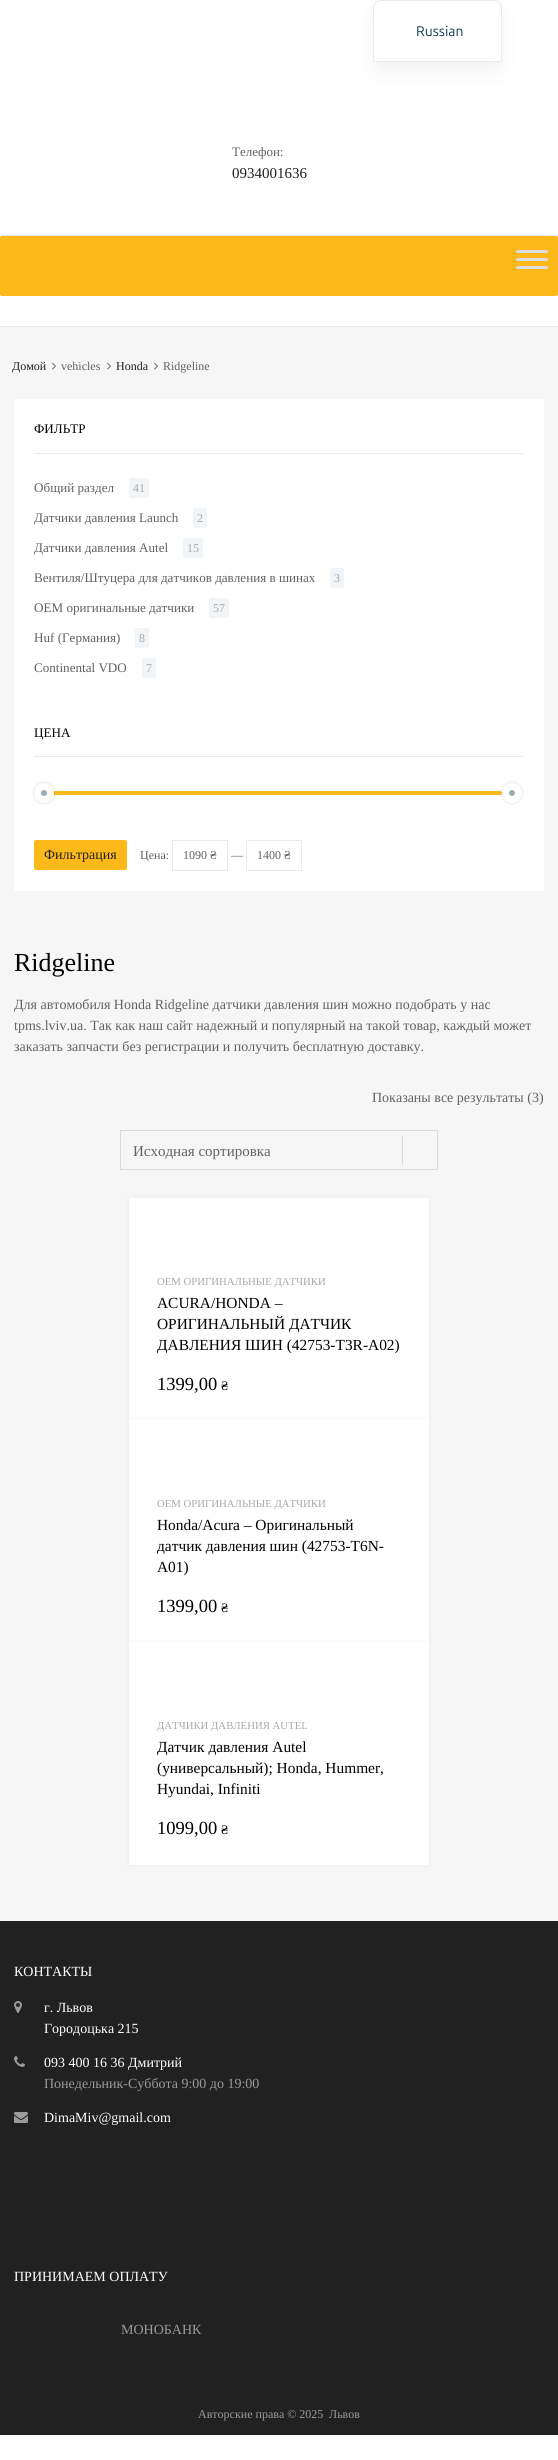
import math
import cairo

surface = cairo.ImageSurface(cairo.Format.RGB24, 558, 2460)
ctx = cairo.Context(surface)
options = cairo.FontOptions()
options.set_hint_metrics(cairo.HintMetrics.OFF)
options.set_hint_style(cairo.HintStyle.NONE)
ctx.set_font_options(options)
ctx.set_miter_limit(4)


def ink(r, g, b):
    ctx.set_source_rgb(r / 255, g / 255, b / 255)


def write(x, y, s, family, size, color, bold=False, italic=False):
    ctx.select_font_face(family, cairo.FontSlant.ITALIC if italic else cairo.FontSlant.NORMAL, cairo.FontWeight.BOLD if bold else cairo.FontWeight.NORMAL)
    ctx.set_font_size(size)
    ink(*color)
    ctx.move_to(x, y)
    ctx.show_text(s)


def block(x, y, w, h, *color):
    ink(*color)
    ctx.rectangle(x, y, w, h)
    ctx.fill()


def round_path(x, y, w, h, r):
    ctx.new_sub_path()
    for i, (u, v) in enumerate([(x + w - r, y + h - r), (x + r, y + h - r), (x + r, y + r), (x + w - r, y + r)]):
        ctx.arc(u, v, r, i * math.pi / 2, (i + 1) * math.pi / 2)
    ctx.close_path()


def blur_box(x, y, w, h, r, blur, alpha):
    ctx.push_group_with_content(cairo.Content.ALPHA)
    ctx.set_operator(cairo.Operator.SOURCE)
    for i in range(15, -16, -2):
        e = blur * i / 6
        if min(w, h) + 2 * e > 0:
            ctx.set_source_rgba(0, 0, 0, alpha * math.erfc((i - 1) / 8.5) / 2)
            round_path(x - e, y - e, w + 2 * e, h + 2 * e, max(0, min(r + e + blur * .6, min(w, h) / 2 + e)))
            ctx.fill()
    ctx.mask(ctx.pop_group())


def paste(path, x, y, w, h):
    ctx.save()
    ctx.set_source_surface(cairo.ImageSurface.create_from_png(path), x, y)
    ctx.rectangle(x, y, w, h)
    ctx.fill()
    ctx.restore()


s1 = dict(family="Ubuntu", size=14, color=(20, 56, 82))
s2 = dict(family="Liberation Serif", size=13, color=(98, 98, 98))
s3 = dict(family="Liberation Serif", size=15, color=(33, 33, 33))
s4 = dict(family="Liberation Serif", size=12, color=(33, 33, 33))
s5 = dict(family="Liberation Serif", size=12, color=(98, 98, 98))
s6 = dict(family="Liberation Serif", size=13.1, color=(0, 0, 0))
s7 = dict(family="Liberation Serif", size=13.1, color=(98, 98, 98))
s8 = dict(family="Liberation Serif", size=12, color=(169, 169, 169))
s9 = dict(family="Liberation Serif", size=14, color=(33, 33, 33))
s10 = dict(family="Liberation Serif", size=26, color=(0, 0, 0))
s11 = dict(family="Liberation Serif", size=14, color=(98, 98, 98))
s12 = dict(family="Liberation Serif", size=15, color=(98, 98, 98))
s13 = dict(family="Liberation Serif", size=10.75, color=(169, 169, 169))
s14 = dict(family="Liberation Serif", size=15.4, color=(0, 0, 0))
s15 = dict(family="Liberation Serif", size=18.5, color=(0, 0, 0))
s16 = dict(family="Liberation Serif", size=13, color=(0, 0, 0))
s17 = dict(family="Liberation Serif", size=14, color=(255, 255, 255))
s18 = dict(family="Liberation Serif", size=14, color=(154, 154, 154))
s19 = dict(family="Liberation Serif", size=12, color=(154, 154, 154))

ink(255, 255, 255)
ctx.paint()
ctx.save()
ctx.set_fill_rule(cairo.FillRule.EVEN_ODD)
ctx.new_path()
ctx.move_to(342, 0)
ctx.line_to(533, 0)
ctx.line_to(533, 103)
ctx.line_to(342, 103)
ctx.close_path()
ctx.move_to(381, 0)
ctx.line_to(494, 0)
ctx.curve_to(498.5, 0, 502, 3.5, 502, 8)
ctx.line_to(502, 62)
ctx.line_to(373, 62)
ctx.line_to(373, 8)
ctx.curve_to(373, 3.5, 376.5, 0, 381, 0)
ctx.close_path()
ctx.clip()
ink(0, 0, 0)
blur_box(373, 10, 129, 62, 8, 10, 0.05)
ctx.restore()
ctx.new_path()
ctx.move_to(381, 0.5)
ctx.line_to(494, 0.5)
ctx.curve_to(498, 0.5, 501.5, 4, 501.5, 8)
ctx.line_to(501.5, 61.5)
ctx.line_to(373.5, 61.5)
ctx.line_to(373.5, 8)
ctx.curve_to(373.5, 4, 377, 0.5, 381, 0.5)
ctx.close_path()
ink(231, 235, 238)
ctx.set_line_width(1)
ctx.stroke()
write(416, 36, "Russian", **s1)
block(0, 327, 558, 1594, 246, 246, 246)
write(232, 156, "Телефон:", **s2)
write(232, 178, "0934001636", **s3)
block(0, 235, 558, 1, 235, 235, 235)
block(0, 326, 558, 1, 235, 235, 235)
ink(253, 184, 25)
round_path(0, 236, 558, 60, 2)
ctx.fill()
ink(221, 221, 221)
round_path(516, 250, 32, 3, 1.5)
ctx.fill()
round_path(516, 258, 32, 3, 1.5)
ctx.fill()
round_path(516, 266, 32, 3, 1.5)
ctx.fill()
write(12, 370, "Домой", **s4)
paste("pic1.png", 52, 362, 4, 8)
write(61, 370, "vehicles", **s5)
paste("pic1.png", 107, 362, 4, 8)
write(116, 370, "Honda", **s4)
paste("pic1.png", 154, 362, 4, 8)
write(163, 370, "Ridgeline", **s5)
block(14, 399, 530, 492, 255, 255, 255)
block(34, 453, 490, 1, 235, 235, 235)
write(34, 433, "ФИЛЬТР", **s6)
write(34, 492, "Общий раздел", **s7)
ink(241, 245, 247)
round_path(129, 478, 20, 20, 2)
ctx.fill()
write(133, 492, "41", **s8)
write(34, 522, "Датчики давления Launch", **s7)
ink(241, 245, 247)
round_path(193, 508, 14, 20, 2)
ctx.fill()
write(197, 522, "2", **s8)
write(34, 552, "Датчики давления Autel", **s7)
ink(241, 245, 247)
round_path(183, 538, 20, 20, 2)
ctx.fill()
write(187, 552, "15", **s8)
write(34, 582, "Вентиля/Штуцера для датчиков давления в шинах", **s7)
ink(241, 245, 247)
round_path(330, 568, 14, 20, 2)
ctx.fill()
write(334, 582, "3", **s8)
write(34, 612, "OEM оригинальные датчики", **s7)
ink(241, 245, 247)
round_path(209, 598, 20, 20, 2)
ctx.fill()
write(213, 612, "57", **s8)
write(34, 642, "Huf (Германия)", **s7)
ink(241, 245, 247)
round_path(135, 628, 14, 20, 2)
ctx.fill()
write(139, 642, "8", **s8)
write(34, 672, "Continental VDO", **s7)
ink(241, 245, 247)
round_path(142, 658, 14, 20, 2)
ctx.fill()
write(146, 672, "7", **s8)
block(34, 756, 490, 1, 235, 235, 235)
write(34, 737, "ЦЕНА", **s6)
block(34, 791, 468, 4, 246, 246, 246)
ink(253, 184, 25)
round_path(34, 791, 468, 4, 2)
ctx.fill()
ink(0, 0, 0)
blur_box(34, 783, 20, 20, 10, 1.5, 0.15)
ink(158, 173, 182)
ctx.arc(44, 793, 6.5, 0, 2 * math.pi)
ctx.fill_preserve()
ink(255, 255, 255)
ctx.set_line_width(7)
ctx.stroke()
ink(0, 0, 0)
blur_box(502, 783, 20, 20, 10, 1.5, 0.15)
ink(158, 173, 182)
ctx.arc(512, 793, 6.5, 0, 2 * math.pi)
ctx.fill_preserve()
ink(255, 255, 255)
ctx.stroke()
ink(253, 184, 25)
round_path(34, 840, 93, 30, 2)
ctx.fill()
write(44, 859, "Фильтрация", **s9)
write(140, 859, "Цена:", **s5)
ctx.rectangle(172.5, 840.5, 55, 30)
ink(235, 235, 235)
ctx.set_line_width(1)
ctx.stroke()
write(183, 859, "1090 ₴", **s5)
write(231, 859, "—", **s5)
ctx.rectangle(246.5, 840.5, 55, 30)
ink(235, 235, 235)
ctx.stroke()
write(257, 859, "1400 ₴", **s5)
write(14, 971, "Ridgeline", **s10)
write(14, 1009, "Для автомобиля Honda Ridgeline датчики давления шин можно подобрать у нас", **s11)
write(14, 1030, "tpms.lviv.ua. Так как наш сайт надежный и популярный на такой товар, каждый может", **s11)
write(14, 1051, "заказать запчасти без регистрации и получить бесплатную доставку.", **s11)
write(372, 1102, "Показаны все результаты (3)", **s11)
block(402, 1135, 1, 30, 219, 219, 219)
ctx.rectangle(120.5, 1130.5, 317, 39)
ctx.stroke()
write(133, 1156, "Исходная сортировка", **s12)
ink(0, 0, 0)
blur_box(129, 1198, 300, 222, 0, 2.5, 0.05)
block(129, 1198, 300, 222, 255, 255, 255)
write(157, 1285, "OEM ОРИГИНАЛЬНЫЕ ДАТЧИКИ", **s13)
write(157, 1308, "ACURA/HONDA –", **s14)
write(157, 1329, "ОРИГИНАЛЬНЫЙ ДАТЧИК", **s14)
write(157, 1350, "ДАВЛЕНИЯ ШИН (42753-T3R-A02)", **s14)
write(157, 1390, "1399,00", **s15)
write(221, 1390, "₴", **s16)
ink(0, 0, 0)
blur_box(129, 1420, 300, 222, 0, 2.5, 0.05)
block(129, 1420, 300, 222, 255, 255, 255)
write(157, 1507, "OEM ОРИГИНАЛЬНЫЕ ДАТЧИКИ", **s13)
write(157, 1530, "Honda/Acura – Оригинальный", **s14)
write(157, 1551, "датчик давления шин (42753-T6N-", **s14)
write(157, 1572, "A01)", **s14)
write(157, 1612, "1399,00", **s15)
write(221, 1612, "₴", **s16)
ink(0, 0, 0)
blur_box(129, 1642, 300, 223, 0, 2.5, 0.05)
block(129, 1642, 300, 223, 255, 255, 255)
write(157, 1729, "ДАТЧИКИ ДАВЛЕНИЯ AUTEL", **s13)
write(157, 1752, "Датчик давления Autel", **s14)
write(157, 1773, "(универсальный); Honda, Hummer,", **s14)
write(157, 1794, "Hyundai, Infiniti", **s14)
write(157, 1834, "1099,00", **s15)
write(221, 1834, "₴", **s16)
block(0, 1921, 558, 514, 33, 33, 33)
write(14, 1976, "КОНТАКТЫ", **s17)
paste("pic2.png", 14, 2001, 8, 12)
write(44, 2012, "г. Львов", **s17)
write(44, 2033, "Городоцька 215", **s17)
paste("pic3.png", 14, 2056, 11, 11)
write(44, 2067, "093 400 16 36 Дмитрий", **s17)
write(44, 2088, "Понедельник-Суббота 9:00 до 19:00", **s18)
paste("pic4.png", 14, 2112, 14, 11)
write(44, 2122, "DimaMiv@gmail.com", **s17)
write(14, 2281, "ПРИНИМАЕМ ОПЛАТУ", **s17)
write(121, 2334, "МОНОБАНК", **s18)
write(198, 2418, "Авторские права © 2025", **s19)
write(329, 2418, "Львов", **s19)
surface.write_to_png("screenshot.png")
